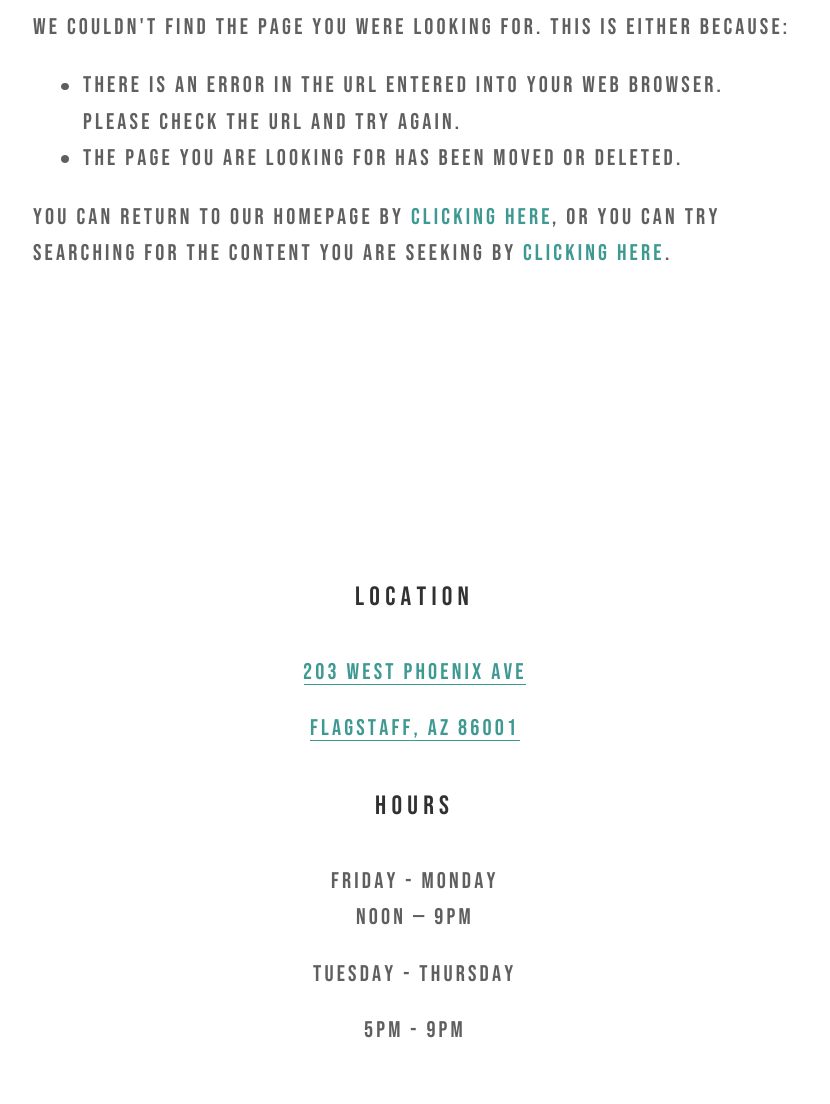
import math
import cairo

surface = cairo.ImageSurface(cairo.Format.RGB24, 830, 1104)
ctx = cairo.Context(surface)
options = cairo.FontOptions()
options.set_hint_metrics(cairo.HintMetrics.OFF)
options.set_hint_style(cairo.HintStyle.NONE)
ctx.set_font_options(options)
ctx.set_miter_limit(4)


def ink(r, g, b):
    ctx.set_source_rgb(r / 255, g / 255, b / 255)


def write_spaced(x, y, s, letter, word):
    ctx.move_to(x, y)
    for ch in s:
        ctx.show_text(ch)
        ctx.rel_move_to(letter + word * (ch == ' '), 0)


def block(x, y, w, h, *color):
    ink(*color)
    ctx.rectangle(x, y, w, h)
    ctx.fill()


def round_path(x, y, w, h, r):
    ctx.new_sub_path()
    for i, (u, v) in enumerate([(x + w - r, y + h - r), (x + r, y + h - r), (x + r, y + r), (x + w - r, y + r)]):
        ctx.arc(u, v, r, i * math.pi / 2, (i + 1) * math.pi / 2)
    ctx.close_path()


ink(255, 255, 255)
ctx.paint()
ctx.select_font_face("Bebas Neue")
ctx.set_font_size(22.65)
ink(95, 95, 95)
write_spaced(33, 34, "We couldn't find the page you were looking for. This is either because:", 3.17, 0)
round_path(61, 83, 8, 7, 3.5)
ctx.fill()
write_spaced(83, 92, "There is an error in the URL entered into your web browser.", 3.17, 0)
write_spaced(83, 129, "Please check the URL and try again.", 3.17, 0)
ctx.new_path()
ctx.arc(65, 159, 4, 0, 2 * math.pi)
ctx.fill()
write_spaced(83, 165, "The page you are looking for has been moved or deleted.", 3.17, 0)
write_spaced(33, 224, "You can return to our homepage by", 3.17, 0)
ink(61, 153, 145)
write_spaced(411, 224, "clicking here", 3.17, 0)
ink(95, 95, 95)
write_spaced(552, 224, ", or you can try", 3.17, 0)
write_spaced(33, 260, "searching for the content you are seeking by", 3.17, 0)
ink(61, 153, 145)
write_spaced(523, 260, "clicking here", 3.17, 0)
ink(95, 95, 95)
write_spaced(665, 260, ".", 3.17, 0)
ctx.set_font_size(26.5)
ink(49, 49, 49)
write_spaced(355, 605, "Location", 5.25, 0)
ctx.set_font_size(22.65)
ink(61, 153, 145)
write_spaced(303, 679, "203 West Phoenix Ave", 3.17, 0)
block(304, 684, 222, 1, 61, 153, 145)
write_spaced(310, 735, "Flagstaff, az 86001", 3.17, 0)
block(310, 740, 210, 1, 61, 153, 145)
ctx.set_font_size(26.5)
ink(49, 49, 49)
write_spaced(375, 814, "Hours", 5.25, 0)
ctx.set_font_size(22.65)
ink(95, 95, 95)
write_spaced(331, 888, "friday - monday", 3.17, 0)
write_spaced(356, 924, "noon — 9pm", 3.17, 0)
write_spaced(313, 981, "tuesday - thursday", 3.17, 0)
write_spaced(364, 1037, "5pm - 9pm", 3.17, 0)
surface.write_to_png("screenshot.png")
